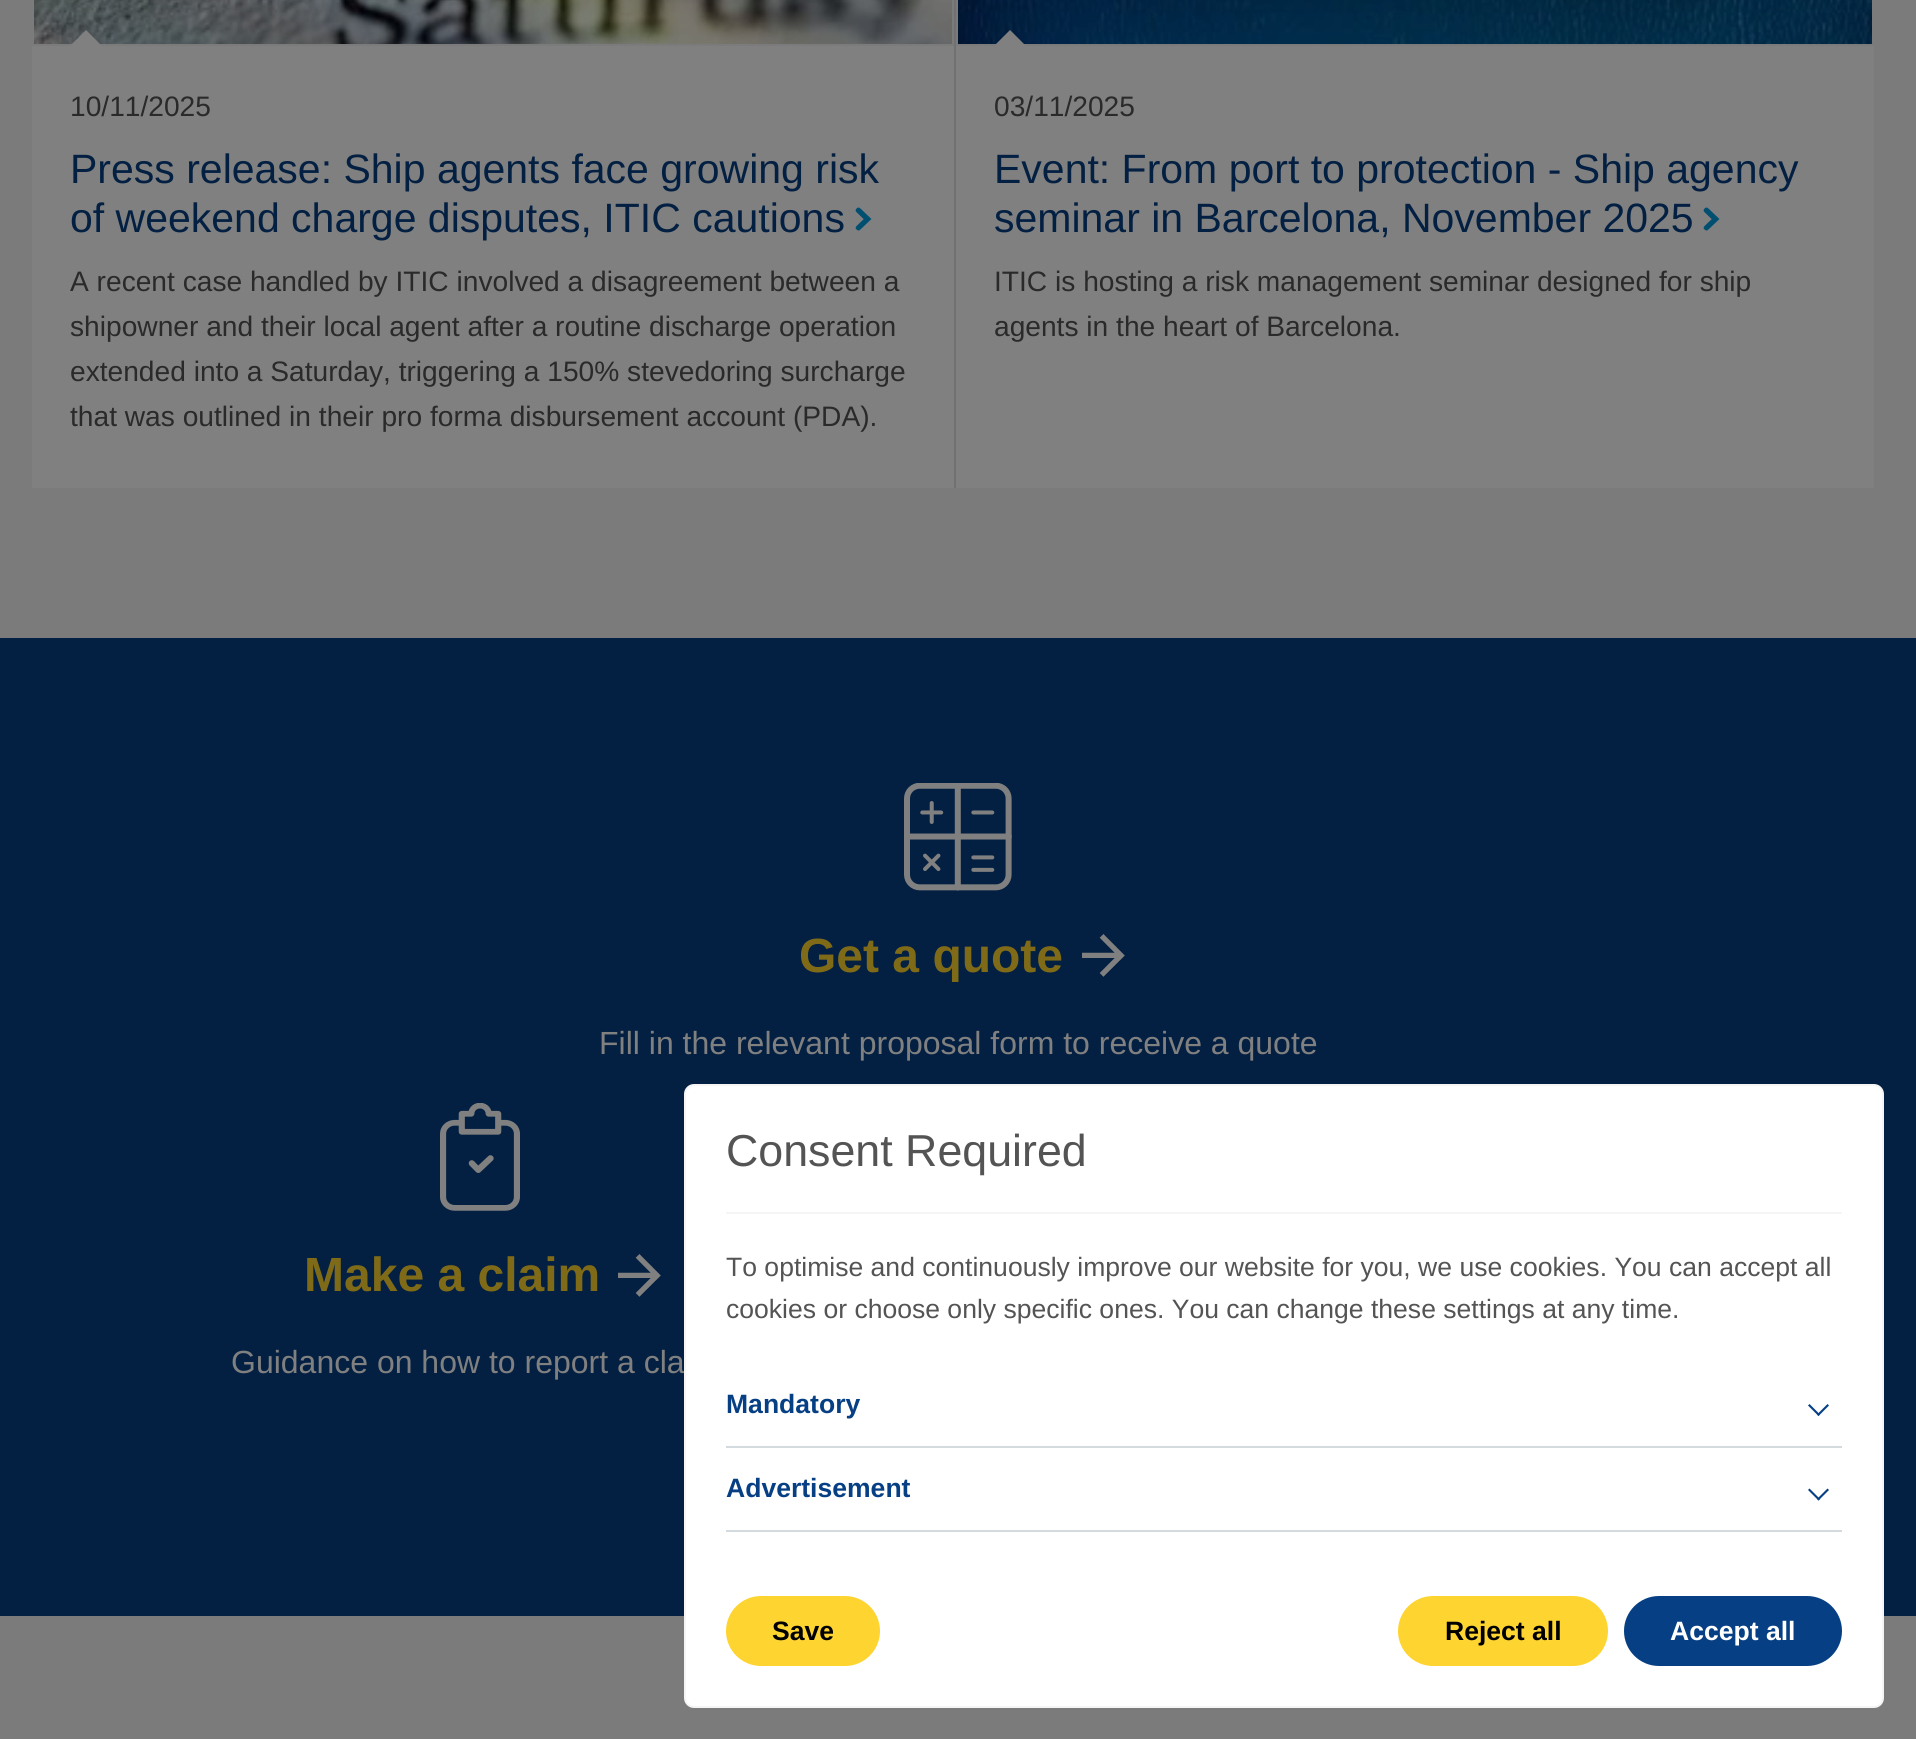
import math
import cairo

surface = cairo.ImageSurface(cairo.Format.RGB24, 1916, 1739)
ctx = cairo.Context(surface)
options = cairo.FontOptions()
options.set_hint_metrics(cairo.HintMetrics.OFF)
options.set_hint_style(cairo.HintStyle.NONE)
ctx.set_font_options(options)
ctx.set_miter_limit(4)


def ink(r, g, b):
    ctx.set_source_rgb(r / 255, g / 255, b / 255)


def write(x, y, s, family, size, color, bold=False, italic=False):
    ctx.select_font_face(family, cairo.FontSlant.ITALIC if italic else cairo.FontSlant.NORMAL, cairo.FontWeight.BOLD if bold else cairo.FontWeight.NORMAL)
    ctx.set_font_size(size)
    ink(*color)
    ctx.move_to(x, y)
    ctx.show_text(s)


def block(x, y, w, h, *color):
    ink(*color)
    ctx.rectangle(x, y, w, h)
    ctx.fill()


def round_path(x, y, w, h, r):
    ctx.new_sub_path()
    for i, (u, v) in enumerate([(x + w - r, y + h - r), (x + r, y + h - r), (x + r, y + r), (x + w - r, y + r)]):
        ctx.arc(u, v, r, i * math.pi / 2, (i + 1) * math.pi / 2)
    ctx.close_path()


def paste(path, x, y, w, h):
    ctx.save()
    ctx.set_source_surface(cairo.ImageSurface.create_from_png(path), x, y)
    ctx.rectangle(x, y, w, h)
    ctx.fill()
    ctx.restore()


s1 = dict(family="Liberation Sans", size=28.15, color=(42, 42, 42))
s2 = dict(family="Liberation Sans", size=41, color=(3, 32, 66))
s3 = dict(family="Liberation Sans", size=48, color=(127, 106, 24), bold=True)
s4 = dict(family="Liberation Sans", size=32, color=(128, 128, 128))
s5 = dict(family="Liberation Sans", size=44.75, color=(84, 84, 84))
s6 = dict(family="Liberation Sans", size=26.55, color=(84, 84, 84))
s7 = dict(family="Liberation Sans", size=26.55, color=(6, 63, 131), bold=True)
s8 = dict(family="Liberation Sans", size=26.55, color=(0, 0, 0), bold=True)
s9 = dict(family="Liberation Sans", size=26.55, color=(255, 255, 255), bold=True)

ink(123, 123, 123)
ctx.paint()
block(32, 46, 922, 442, 128, 128, 128)
paste("pic1.png", 34, 0, 918, 44)
ctx.new_path()
ctx.move_to(102, 46)
ctx.line_to(70, 46)
ctx.line_to(86, 30)
ctx.close_path()
ctx.fill()
write(70, 116, "10/11/2025", **s1)
write(70, 183, "Press release: Ship agents face growing risk", **s2)
write(70, 232, "of weekend charge disputes, ITIC cautions", **s2)
paste("pic2.png", 855, 207, 17, 24)
write(70, 291, "A recent case handled by ITIC involved a disagreement between a", **s1)
write(70, 336, "shipowner and their local agent after a routine discharge operation", **s1)
write(70, 381, "extended into a Saturday, triggering a 150% stevedoring surcharge", **s1)
write(70, 426, "that was outlined in their pro forma disbursement account (PDA).", **s1)
block(956, 46, 918, 442, 128, 128, 128)
block(954, 0, 2, 488, 113, 113, 113)
paste("pic3.png", 958, 0, 914, 44)
ink(128, 128, 128)
ctx.new_path()
ctx.move_to(1026, 46)
ctx.line_to(994, 46)
ctx.line_to(1010, 30)
ctx.close_path()
ctx.fill()
write(994, 116, "03/11/2025", **s1)
write(994, 183, "Event: From port to protection - Ship agency", **s2)
write(994, 232, "seminar in Barcelona, November 2025", **s2)
paste("pic2.png", 1703, 207, 17, 24)
write(994, 291, "ITIC is hosting a risk management seminar designed for ship", **s1)
write(994, 336, "agents in the heart of Barcelona.", **s1)
block(0, 638, 1916, 978, 3, 32, 66)
paste("pic4.png", 904, 783, 108, 108)
write(799, 972, "Get a quote", **s3)
paste("pic5.png", 1082, 934, 43, 43)
write(599, 1054, "Fill in the relevant proposal form to receive a quote", **s4)
paste("pic6.png", 440, 1103, 80, 108)
write(304, 1291, "Make a claim", **s3)
paste("pic5.png", 618, 1254, 43, 43)
write(231, 1373, "Guidance on how to report a cla", **s4)
ink(255, 255, 255)
round_path(685, 1085, 1198, 622, 9)
ctx.fill_preserve()
ink(245, 245, 245)
ctx.stroke()
block(726, 1212, 1116, 2, 245, 245, 245)
write(726, 1166, "Consent Required", **s5)
write(726, 1276, "To optimise and continuously improve our website for you, we use cookies. You can accept all", **s6)
write(726, 1318, "cookies or choose only specific ones. You can change these settings at any time.", **s6)
block(726, 1446, 1116, 2, 212, 219, 222)
write(726, 1413, "Mandatory", **s7)
ctx.new_path()
ctx.move_to(1827.5, 1404)
ctx.line_to(1829, 1405.5)
ctx.line_to(1818.5, 1416)
ctx.line_to(1817, 1414.5)
ctx.close_path()
ctx.fill()
ctx.new_path()
ctx.move_to(1809.5, 1404)
ctx.line_to(1820, 1414.5)
ctx.line_to(1818.5, 1416)
ctx.line_to(1808, 1405.5)
ctx.close_path()
ctx.fill()
block(726, 1530, 1116, 2, 212, 219, 222)
write(726, 1497, "Advertisement", **s7)
ctx.new_path()
ctx.move_to(1827.5, 1488.5)
ctx.line_to(1829, 1490)
ctx.line_to(1818.5, 1500.5)
ctx.line_to(1817, 1499)
ctx.close_path()
ctx.fill()
ctx.new_path()
ctx.move_to(1809.5, 1488.5)
ctx.line_to(1820, 1499)
ctx.line_to(1818.5, 1500.5)
ctx.line_to(1808, 1490)
ctx.close_path()
ctx.fill()
ink(254, 212, 48)
round_path(726, 1596, 154, 70, 35)
ctx.fill()
write(772, 1640, "Save", **s8)
ink(254, 212, 48)
round_path(1398, 1596, 210, 70, 35)
ctx.fill()
write(1445, 1640, "Reject all", **s8)
ink(6, 63, 131)
round_path(1624, 1596, 218, 70, 35)
ctx.fill()
write(1670, 1640, "Accept all", **s9)
surface.write_to_png("screenshot.png")
